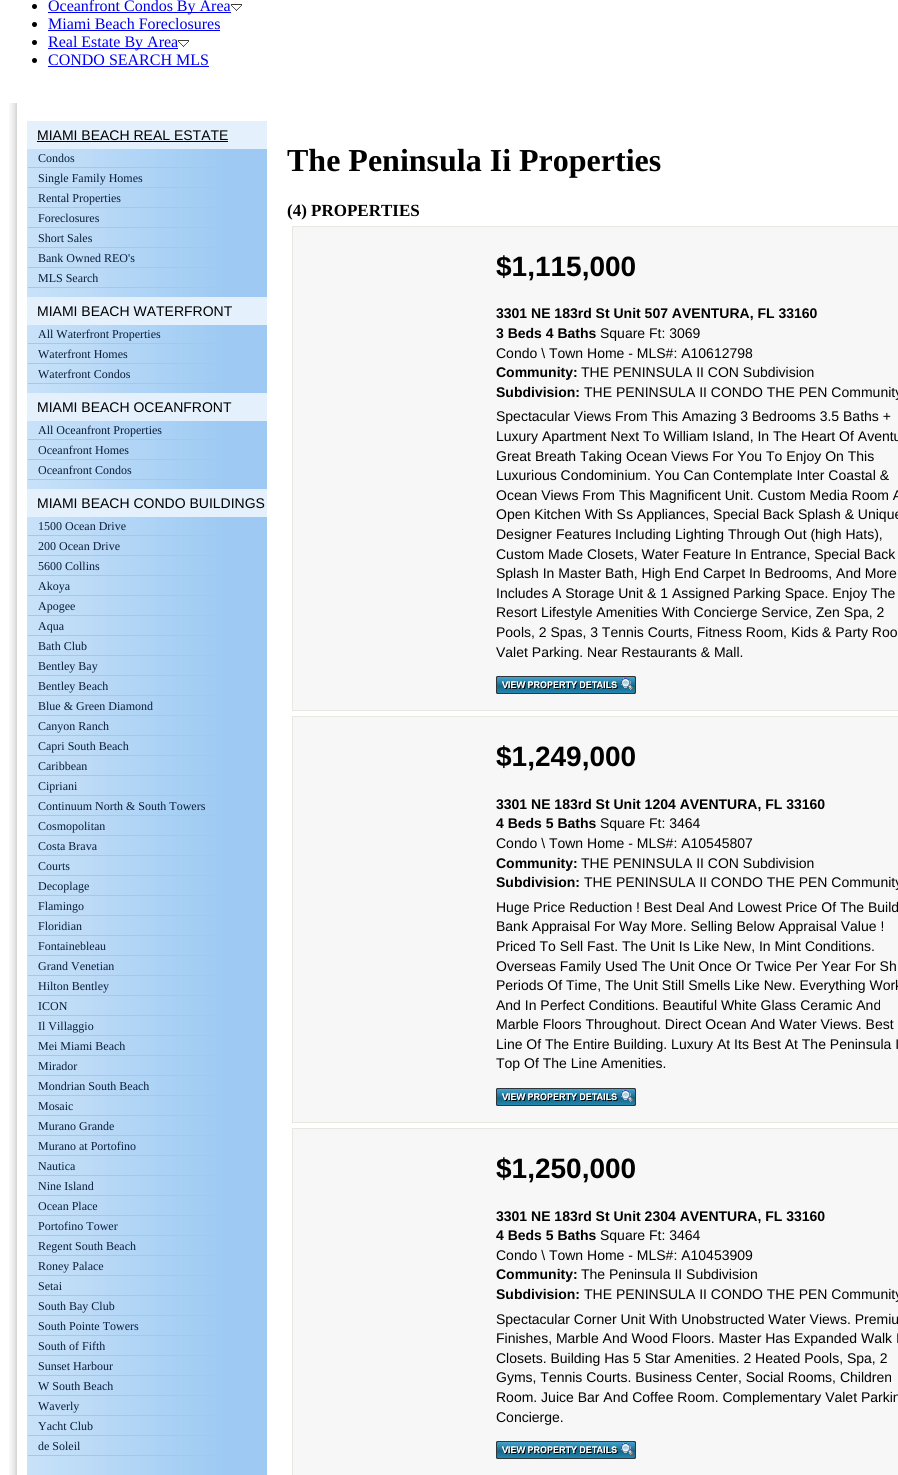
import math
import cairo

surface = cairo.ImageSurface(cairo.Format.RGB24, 898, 1475)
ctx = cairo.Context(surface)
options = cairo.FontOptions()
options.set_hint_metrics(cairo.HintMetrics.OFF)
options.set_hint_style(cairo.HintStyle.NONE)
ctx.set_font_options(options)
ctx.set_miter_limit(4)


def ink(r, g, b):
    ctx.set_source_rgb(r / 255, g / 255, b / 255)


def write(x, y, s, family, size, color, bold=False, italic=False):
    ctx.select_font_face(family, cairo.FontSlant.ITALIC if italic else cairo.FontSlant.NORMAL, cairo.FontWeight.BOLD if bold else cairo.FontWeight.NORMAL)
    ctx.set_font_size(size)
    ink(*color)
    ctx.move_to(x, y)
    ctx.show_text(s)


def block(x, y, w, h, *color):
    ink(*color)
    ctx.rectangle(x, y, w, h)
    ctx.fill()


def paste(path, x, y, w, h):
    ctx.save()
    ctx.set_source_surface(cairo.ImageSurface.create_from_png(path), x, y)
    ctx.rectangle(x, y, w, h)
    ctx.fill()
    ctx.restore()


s1 = dict(family="Liberation Serif", size=16, color=(0, 0, 238))
s2 = dict(family="Liberation Sans", size=14, color=(0, 0, 0))
s3 = dict(family="Liberation Serif", size=12, color=(9, 27, 57))
s4 = dict(family="Liberation Serif", size=32, color=(0, 0, 0), bold=True)
s5 = dict(family="Liberation Serif", size=17, color=(0, 0, 0), bold=True)
s6 = dict(family="Liberation Sans", size=28, color=(0, 0, 0), bold=True)
s7 = dict(family="Liberation Sans", size=14, color=(0, 0, 0), bold=True)

ink(255, 255, 255)
ctx.paint()
ink(0, 0, 0)
ctx.arc(34.5, 6.5, 2.5, 0, 2 * math.pi)
ctx.fill()
block(48, 12, 183, 1, 0, 0, 238)
write(48, 11, "Oceanfront Condos By Area", **s1)
paste("pic1.png", 231, 4, 11, 7)
ink(0, 0, 0)
ctx.arc(34.5, 24.5, 2.5, 0, 2 * math.pi)
ctx.fill()
write(48, 29, "Miami Beach Foreclosures", **s1)
block(48, 30, 172, 1, 0, 0, 238)
ink(0, 0, 0)
ctx.new_path()
ctx.arc(34.5, 42.5, 2.5, 0, 2 * math.pi)
ctx.fill()
block(48, 48, 130, 1, 0, 0, 238)
write(48, 47, "Real Estate By Area", **s1)
paste("pic1.png", 178, 40, 11, 7)
ink(0, 0, 0)
ctx.arc(34.5, 60.5, 2.5, 0, 2 * math.pi)
ctx.fill()
write(48, 65, "CONDO SEARCH MLS", **s1)
block(48, 66, 161, 1, 0, 0, 238)
paste("pic2.png", 9, 103, 8, 1372)
paste("pic3.png", 27, 149, 240, 1326)
block(27, 121, 240, 28, 228, 241, 252)
write(37, 140, "MIAMI BEACH REAL ESTATE", **s2)
block(37, 141, 191, 1, 0, 0, 0)
block(28, 167, 194, 1, 156, 202, 243)
write(38, 162, "Condos", **s3)
block(28, 187, 194, 1, 156, 202, 243)
write(38, 182, "Single Family Homes", **s3)
block(28, 207, 194, 1, 156, 202, 243)
write(38, 202, "Rental Properties", **s3)
block(28, 227, 194, 1, 156, 202, 243)
write(38, 222, "Foreclosures", **s3)
block(28, 247, 194, 1, 156, 202, 243)
write(38, 242, "Short Sales", **s3)
block(28, 267, 194, 1, 156, 202, 243)
write(38, 262, "Bank Owned REO's", **s3)
block(28, 287, 194, 1, 156, 202, 243)
write(38, 282, "MLS Search", **s3)
block(27, 297, 240, 28, 228, 241, 252)
write(37, 316, "MIAMI BEACH WATERFRONT", **s2)
block(28, 343, 194, 1, 156, 202, 243)
write(38, 338, "All Waterfront Properties", **s3)
block(28, 363, 194, 1, 156, 202, 243)
write(38, 358, "Waterfront Homes", **s3)
block(28, 383, 194, 1, 156, 202, 243)
write(38, 378, "Waterfront Condos", **s3)
block(27, 393, 240, 28, 228, 241, 252)
write(37, 412, "MIAMI BEACH OCEANFRONT", **s2)
block(28, 439, 194, 1, 156, 202, 243)
write(38, 434, "All Oceanfront Properties", **s3)
block(28, 459, 194, 1, 156, 202, 243)
write(38, 454, "Oceanfront Homes", **s3)
block(28, 479, 194, 1, 156, 202, 243)
write(38, 474, "Oceanfront Condos", **s3)
block(27, 489, 240, 28, 228, 241, 252)
write(37, 508, "MIAMI BEACH CONDO BUILDINGS", **s2)
block(28, 535, 194, 1, 156, 202, 243)
write(38, 530, "1500 Ocean Drive", **s3)
block(28, 555, 194, 1, 156, 202, 243)
write(38, 550, "200 Ocean Drive", **s3)
block(28, 575, 194, 1, 156, 202, 243)
write(38, 570, "5600 Collins", **s3)
block(28, 595, 194, 1, 156, 202, 243)
write(38, 590, "Akoya", **s3)
block(28, 615, 194, 1, 156, 202, 243)
write(38, 610, "Apogee", **s3)
block(28, 635, 194, 1, 156, 202, 243)
write(38, 630, "Aqua", **s3)
block(28, 655, 194, 1, 156, 202, 243)
write(38, 650, "Bath Club", **s3)
block(28, 675, 194, 1, 156, 202, 243)
write(38, 670, "Bentley Bay", **s3)
block(28, 695, 194, 1, 156, 202, 243)
write(38, 690, "Bentley Beach", **s3)
block(28, 715, 194, 1, 156, 202, 243)
write(38, 710, "Blue & Green Diamond", **s3)
block(28, 735, 194, 1, 156, 202, 243)
write(38, 730, "Canyon Ranch", **s3)
block(28, 755, 194, 1, 156, 202, 243)
write(38, 750, "Capri South Beach", **s3)
block(28, 775, 194, 1, 156, 202, 243)
write(38, 770, "Caribbean", **s3)
block(28, 795, 194, 1, 156, 202, 243)
write(38, 790, "Cipriani", **s3)
block(28, 815, 194, 1, 156, 202, 243)
write(38, 810, "Continuum North & South Towers", **s3)
block(28, 835, 194, 1, 156, 202, 243)
write(38, 830, "Cosmopolitan", **s3)
block(28, 855, 194, 1, 156, 202, 243)
write(38, 850, "Costa Brava", **s3)
block(28, 875, 194, 1, 156, 202, 243)
write(38, 870, "Courts", **s3)
block(28, 895, 194, 1, 156, 202, 243)
write(38, 890, "Decoplage", **s3)
block(28, 915, 194, 1, 156, 202, 243)
write(38, 910, "Flamingo", **s3)
block(28, 935, 194, 1, 156, 202, 243)
write(38, 930, "Floridian", **s3)
block(28, 955, 194, 1, 156, 202, 243)
write(38, 950, "Fontainebleau", **s3)
block(28, 975, 194, 1, 156, 202, 243)
write(38, 970, "Grand Venetian", **s3)
block(28, 995, 194, 1, 156, 202, 243)
write(38, 990, "Hilton Bentley", **s3)
block(28, 1015, 194, 1, 156, 202, 243)
write(38, 1010, "ICON", **s3)
block(28, 1035, 194, 1, 156, 202, 243)
write(38, 1030, "Il Villaggio", **s3)
block(28, 1055, 194, 1, 156, 202, 243)
write(38, 1050, "Mei Miami Beach", **s3)
block(28, 1075, 194, 1, 156, 202, 243)
write(38, 1070, "Mirador", **s3)
block(28, 1095, 194, 1, 156, 202, 243)
write(38, 1090, "Mondrian South Beach", **s3)
block(28, 1115, 194, 1, 156, 202, 243)
write(38, 1110, "Mosaic", **s3)
block(28, 1135, 194, 1, 156, 202, 243)
write(38, 1130, "Murano Grande", **s3)
block(28, 1155, 194, 1, 156, 202, 243)
write(38, 1150, "Murano at Portofino", **s3)
block(28, 1175, 194, 1, 156, 202, 243)
write(38, 1170, "Nautica", **s3)
block(28, 1195, 194, 1, 156, 202, 243)
write(38, 1190, "Nine Island", **s3)
block(28, 1215, 194, 1, 156, 202, 243)
write(38, 1210, "Ocean Place", **s3)
block(28, 1235, 194, 1, 156, 202, 243)
write(38, 1230, "Portofino Tower", **s3)
block(28, 1255, 194, 1, 156, 202, 243)
write(38, 1250, "Regent South Beach", **s3)
block(28, 1275, 194, 1, 156, 202, 243)
write(38, 1270, "Roney Palace", **s3)
block(28, 1295, 194, 1, 156, 202, 243)
write(38, 1290, "Setai", **s3)
block(28, 1315, 194, 1, 156, 202, 243)
write(38, 1310, "South Bay Club", **s3)
block(28, 1335, 194, 1, 156, 202, 243)
write(38, 1330, "South Pointe Towers", **s3)
block(28, 1355, 194, 1, 156, 202, 243)
write(38, 1350, "South of Fifth", **s3)
block(28, 1375, 194, 1, 156, 202, 243)
write(38, 1370, "Sunset Harbour", **s3)
block(28, 1395, 194, 1, 156, 202, 243)
write(38, 1390, "W South Beach", **s3)
block(28, 1415, 194, 1, 156, 202, 243)
write(38, 1410, "Waverly", **s3)
block(28, 1435, 194, 1, 156, 202, 243)
write(38, 1430, "Yacht Club", **s3)
block(28, 1455, 194, 1, 156, 202, 243)
write(38, 1450, "de Soleil", **s3)
write(287, 171, "The Peninsula Ii Properties", **s4)
write(287, 216, "(4) PROPERTIES", **s5)
ink(247, 247, 247)
ctx.rectangle(292.5, 226.5, 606, 484)
ctx.fill_preserve()
ink(232, 232, 224)
ctx.set_line_width(1)
ctx.stroke()
write(496, 276, "$1,115,000", **s6)
write(496, 318, "3301 NE 183rd St Unit 507 AVENTURA, FL 33160", **s7)
write(496, 338, "3 Beds 4 Baths", **s7)
write(600, 338, "Square Ft: 3069", **s2)
write(496, 358, "Condo \\ Town Home - MLS#: A10612798", **s2)
write(496, 377, "Community:", **s7)
write(581, 377, "THE PENINSULA II CON Subdivision", **s2)
write(496, 397, "Subdivision:", **s7)
write(584, 397, "THE PENINSULA II CONDO THE PEN Community", **s2)
write(496, 421, "Spectacular Views From This Amazing 3 Bedrooms 3.5 Baths +", **s2)
write(496, 441, "Luxury Apartment Next To William Island, In The Heart Of Aventu", **s2)
write(496, 461, "Great Breath Taking Ocean Views For You To Enjoy On This", **s2)
write(496, 480, "Luxurious Condominium. You Can Contemplate Inter Coastal &", **s2)
write(496, 500, "Ocean Views From This Magnificent Unit. Custom Media Room A", **s2)
write(496, 519, "Open Kitchen With Ss Appliances, Special Back Splash & Unique", **s2)
write(496, 539, "Designer Features Including Lighting Through Out (high Hats),", **s2)
write(496, 559, "Custom Made Closets, Water Feature In Entrance, Special Back", **s2)
write(496, 578, "Splash In Master Bath, High End Carpet In Bedrooms, And More", **s2)
write(496, 598, "Includes A Storage Unit & 1 Assigned Parking Space. Enjoy The", **s2)
write(496, 617, "Resort Lifestyle Amenities With Concierge Service, Zen Spa, 2", **s2)
write(496, 637, "Pools, 2 Spas, 3 Tennis Courts, Fitness Room, Kids & Party Roo", **s2)
write(496, 657, "Valet Parking. Near Restaurants & Mall.", **s2)
paste("pic4.png", 496, 676, 140, 18)
ink(247, 247, 247)
ctx.rectangle(292.5, 716.5, 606, 406)
ctx.fill_preserve()
ink(232, 232, 224)
ctx.stroke()
write(496, 766, "$1,249,000", **s6)
write(496, 809, "3301 NE 183rd St Unit 1204 AVENTURA, FL 33160", **s7)
write(496, 828, "4 Beds 5 Baths", **s7)
write(600, 828, "Square Ft: 3464", **s2)
write(496, 848, "Condo \\ Town Home - MLS#: A10545807", **s2)
write(496, 868, "Community:", **s7)
write(581, 868, "THE PENINSULA II CON Subdivision", **s2)
write(496, 887, "Subdivision:", **s7)
write(584, 887, "THE PENINSULA II CONDO THE PEN Community", **s2)
write(496, 912, "Huge Price Reduction ! Best Deal And Lowest Price Of The Build", **s2)
write(496, 931, "Bank Appraisal For Way More. Selling Below Appraisal Value !", **s2)
write(496, 951, "Priced To Sell Fast. The Unit Is Like New, In Mint Conditions.", **s2)
write(496, 971, "Overseas Family Used The Unit Once Or Twice Per Year For Sh", **s2)
write(496, 990, "Periods Of Time, The Unit Still Smells Like New. Everything Work", **s2)
write(496, 1010, "And In Perfect Conditions. Beautiful White Glass Ceramic And", **s2)
write(496, 1029, "Marble Floors Throughout. Direct Ocean And Water Views. Best", **s2)
write(496, 1049, "Line Of The Entire Building. Luxury At Its Best At The Peninsula I", **s2)
write(496, 1068, "Top Of The Line Amenities.", **s2)
paste("pic4.png", 496, 1088, 140, 18)
ink(247, 247, 247)
ctx.rectangle(292.5, 1128.5, 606, 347)
ctx.fill_preserve()
ink(232, 232, 224)
ctx.stroke()
write(496, 1178, "$1,250,000", **s6)
write(496, 1221, "3301 NE 183rd St Unit 2304 AVENTURA, FL 33160", **s7)
write(496, 1240, "4 Beds 5 Baths", **s7)
write(600, 1240, "Square Ft: 3464", **s2)
write(496, 1260, "Condo \\ Town Home - MLS#: A10453909", **s2)
write(496, 1279, "Community:", **s7)
write(581, 1279, "The Peninsula II Subdivision", **s2)
write(496, 1299, "Subdivision:", **s7)
write(584, 1299, "THE PENINSULA II CONDO THE PEN Community", **s2)
write(496, 1324, "Spectacular Corner Unit With Unobstructed Water Views. Premiu", **s2)
write(496, 1343, "Finishes, Marble And Wood Floors. Master Has Expanded Walk I", **s2)
write(496, 1363, "Closets. Building Has 5 Star Amenities. 2 Heated Pools, Spa, 2", **s2)
write(496, 1382, "Gyms, Tennis Courts. Business Center, Social Rooms, Children", **s2)
write(496, 1402, "Room. Juice Bar And Coffee Room. Complementary Valet Parkin", **s2)
write(496, 1422, "Concierge.", **s2)
paste("pic4.png", 496, 1441, 140, 18)
surface.write_to_png("screenshot.png")
